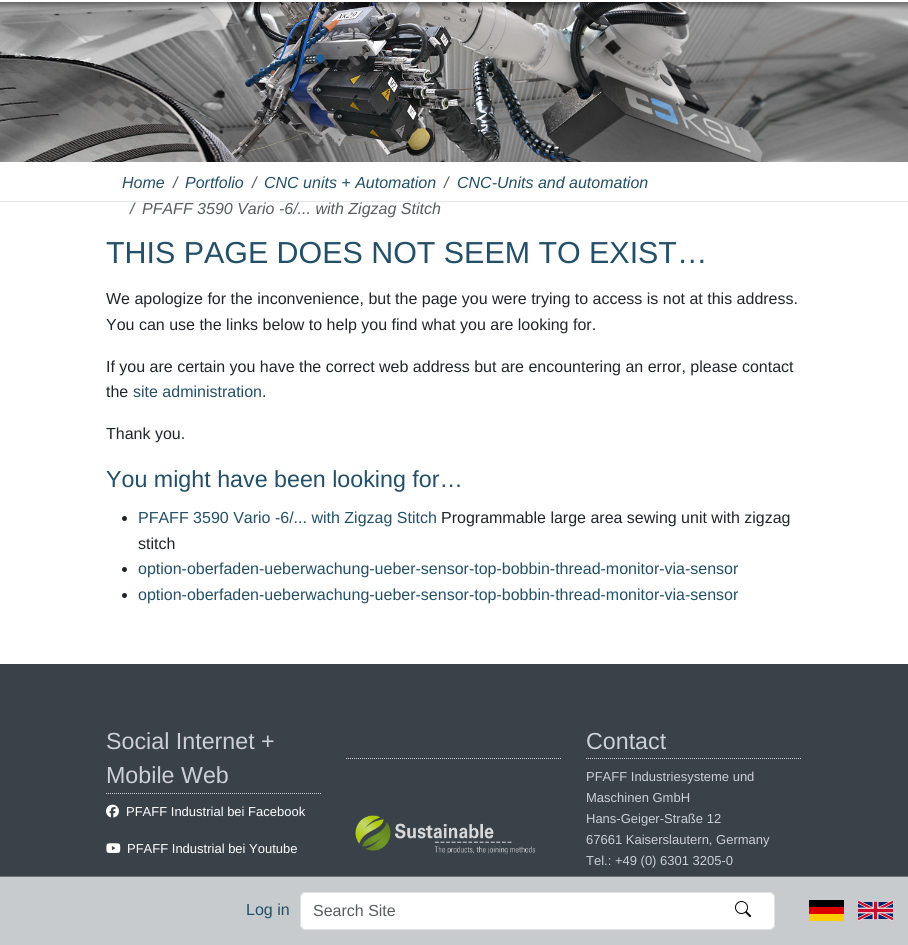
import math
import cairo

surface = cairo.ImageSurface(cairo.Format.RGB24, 908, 945)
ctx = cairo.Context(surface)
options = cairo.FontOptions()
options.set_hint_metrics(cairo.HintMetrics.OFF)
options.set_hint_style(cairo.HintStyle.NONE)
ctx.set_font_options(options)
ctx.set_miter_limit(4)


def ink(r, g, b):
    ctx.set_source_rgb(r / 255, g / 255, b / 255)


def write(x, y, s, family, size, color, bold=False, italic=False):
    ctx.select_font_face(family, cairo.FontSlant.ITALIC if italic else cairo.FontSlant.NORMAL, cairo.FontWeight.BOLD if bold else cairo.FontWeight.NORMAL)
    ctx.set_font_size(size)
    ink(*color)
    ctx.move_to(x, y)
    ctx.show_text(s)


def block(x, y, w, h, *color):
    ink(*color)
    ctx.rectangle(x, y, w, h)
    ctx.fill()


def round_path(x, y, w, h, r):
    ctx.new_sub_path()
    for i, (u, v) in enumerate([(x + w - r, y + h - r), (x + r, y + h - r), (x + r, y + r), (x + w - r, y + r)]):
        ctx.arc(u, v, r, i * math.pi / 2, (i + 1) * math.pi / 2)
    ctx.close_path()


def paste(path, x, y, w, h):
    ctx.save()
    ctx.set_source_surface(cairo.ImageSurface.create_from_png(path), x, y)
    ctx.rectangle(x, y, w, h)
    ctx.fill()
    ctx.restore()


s1 = dict(family="Liberation Sans", size=16, color=(35, 79, 105), italic=True)
s2 = dict(family="Liberation Sans", size=16, color=(89, 92, 95), italic=True)
s3 = dict(family="Liberation Sans", size=30.4, color=(35, 79, 105))
s4 = dict(family="Liberation Sans", size=16, color=(33, 37, 41))
s5 = dict(family="Liberation Sans", size=16, color=(35, 79, 105))
s6 = dict(family="Liberation Sans", size=23.25, color=(35, 79, 105))
s7 = dict(family="Liberation Sans", size=16, color=(89, 92, 95))
s8 = dict(family="Liberation Sans", size=23.25, color=(204, 207, 214))
s9 = dict(family="Liberation Sans", size=13, color=(255, 255, 255))
s10 = dict(family="Liberation Sans", size=13, color=(204, 207, 214))

ink(255, 255, 255)
ctx.paint()
paste("pic1.png", 0, 2, 908, 160)
block(0, 201, 908, 1, 230, 233, 236)
write(122, 188, "Home", **s1)
write(173, 188, "/", **s2)
write(185, 188, "Portfolio", **s1)
write(252, 188, "/", **s2)
write(264, 188, "CNC units + Automation", **s1)
write(444, 188, "/", **s2)
write(457, 188, "CNC-Units and automation", **s1)
write(130, 214, "/", **s2)
write(142, 214, "PFAFF 3590 Vario -6/... with Zigzag Stitch", **s2)
write(106, 263, "THIS PAGE DOES NOT SEEM TO EXIST…", **s3)
write(106, 304, "We apologize for the inconvenience, but the page you were trying to access is not at this address.", **s4)
write(106, 330, "You can use the links below to help you find what you are looking for.", **s4)
write(106, 372, "If you are certain you have the correct web address but are encountering an error, please contact", **s4)
write(106, 397, "the", **s4)
write(133, 397, "site administration", **s5)
write(262, 397, ".", **s4)
write(106, 439, "Thank you.", **s4)
write(106, 487, "You might have been looking for…", **s6)
ink(33, 37, 41)
ctx.new_path()
ctx.arc(124.5, 518.5, 2.5, 0, 2 * math.pi)
ctx.fill()
write(138, 523, "PFAFF 3590 Vario -6/... with Zigzag Stitch", **s5)
write(441, 523, "Programmable large area sewing unit with zigzag", **s4)
write(138, 549, "stitch", **s4)
ctx.new_path()
ctx.arc(124.5, 569.5, 2.5, 0, 2 * math.pi)
ctx.fill()
write(138, 574, "option-oberfaden-ueberwachung-ueber-sensor-top-bobbin-thread-monitor-via-sensor", **s5)
ink(33, 37, 41)
ctx.new_path()
ctx.arc(124.5, 595.5, 2.5, 0, 2 * math.pi)
ctx.fill()
write(138, 600, "option-oberfaden-ueberwachung-ueber-sensor-top-bobbin-thread-monitor-via-sensor", **s5)
block(0, 877, 908, 68, 199, 203, 206)
block(0, 876, 908, 1, 105, 115, 121)
write(246, 915, "Log in", **s5)
ink(255, 255, 255)
round_path(300, 892, 475, 38, 6)
ctx.fill()
paste("pic2.png", 735, 901, 16, 16)
round_path(300.5, 892.5, 474, 37, 5.5)
ink(222, 226, 230)
ctx.set_line_width(1)
ctx.stroke()
write(313, 916, "Search Site", **s7)
block(809, 900, 35, 7, 0, 0, 0)
block(809, 907, 35, 7, 221, 0, 0)
block(809, 914, 35, 7, 255, 206, 0)
paste("pic3.png", 858, 900, 35, 21)
block(0, 664, 908, 212, 57, 65, 73)
ctx.new_path()
ctx.move_to(106, 793.5)
ctx.line_to(322, 793.5)
ink(204, 207, 214)
ctx.set_dash([1, 1])
ctx.stroke()
write(106, 749, "Social Internet +", **s8)
write(106, 783, "Mobile Web", **s8)
paste("pic4.png", 106, 804, 13, 14)
write(126, 816, "PFAFF Industrial bei Facebook", **s9)
paste("pic5.png", 106, 843, 15, 10)
write(127, 853, "PFAFF Industrial bei Youtube", **s9)
ctx.new_path()
ctx.move_to(346, 758.5)
ctx.line_to(562, 758.5)
ink(204, 207, 214)
ctx.stroke()
paste("pic6.png", 355, 815, 181, 39)
ctx.new_path()
ctx.move_to(586, 758.5)
ctx.line_to(802, 758.5)
ctx.stroke()
write(586, 749, "Contact", **s8)
write(586, 781, "PFAFF Industriesysteme und", **s10)
write(586, 802, "Maschinen GmbH", **s10)
write(586, 823, "Hans-Geiger-Straße 12", **s10)
write(586, 844, "67661 Kaiserslautern, Germany", **s10)
write(586, 865, "Tel.: +49 (0) 6301 3205-0", **s10)
surface.write_to_png("screenshot.png")
